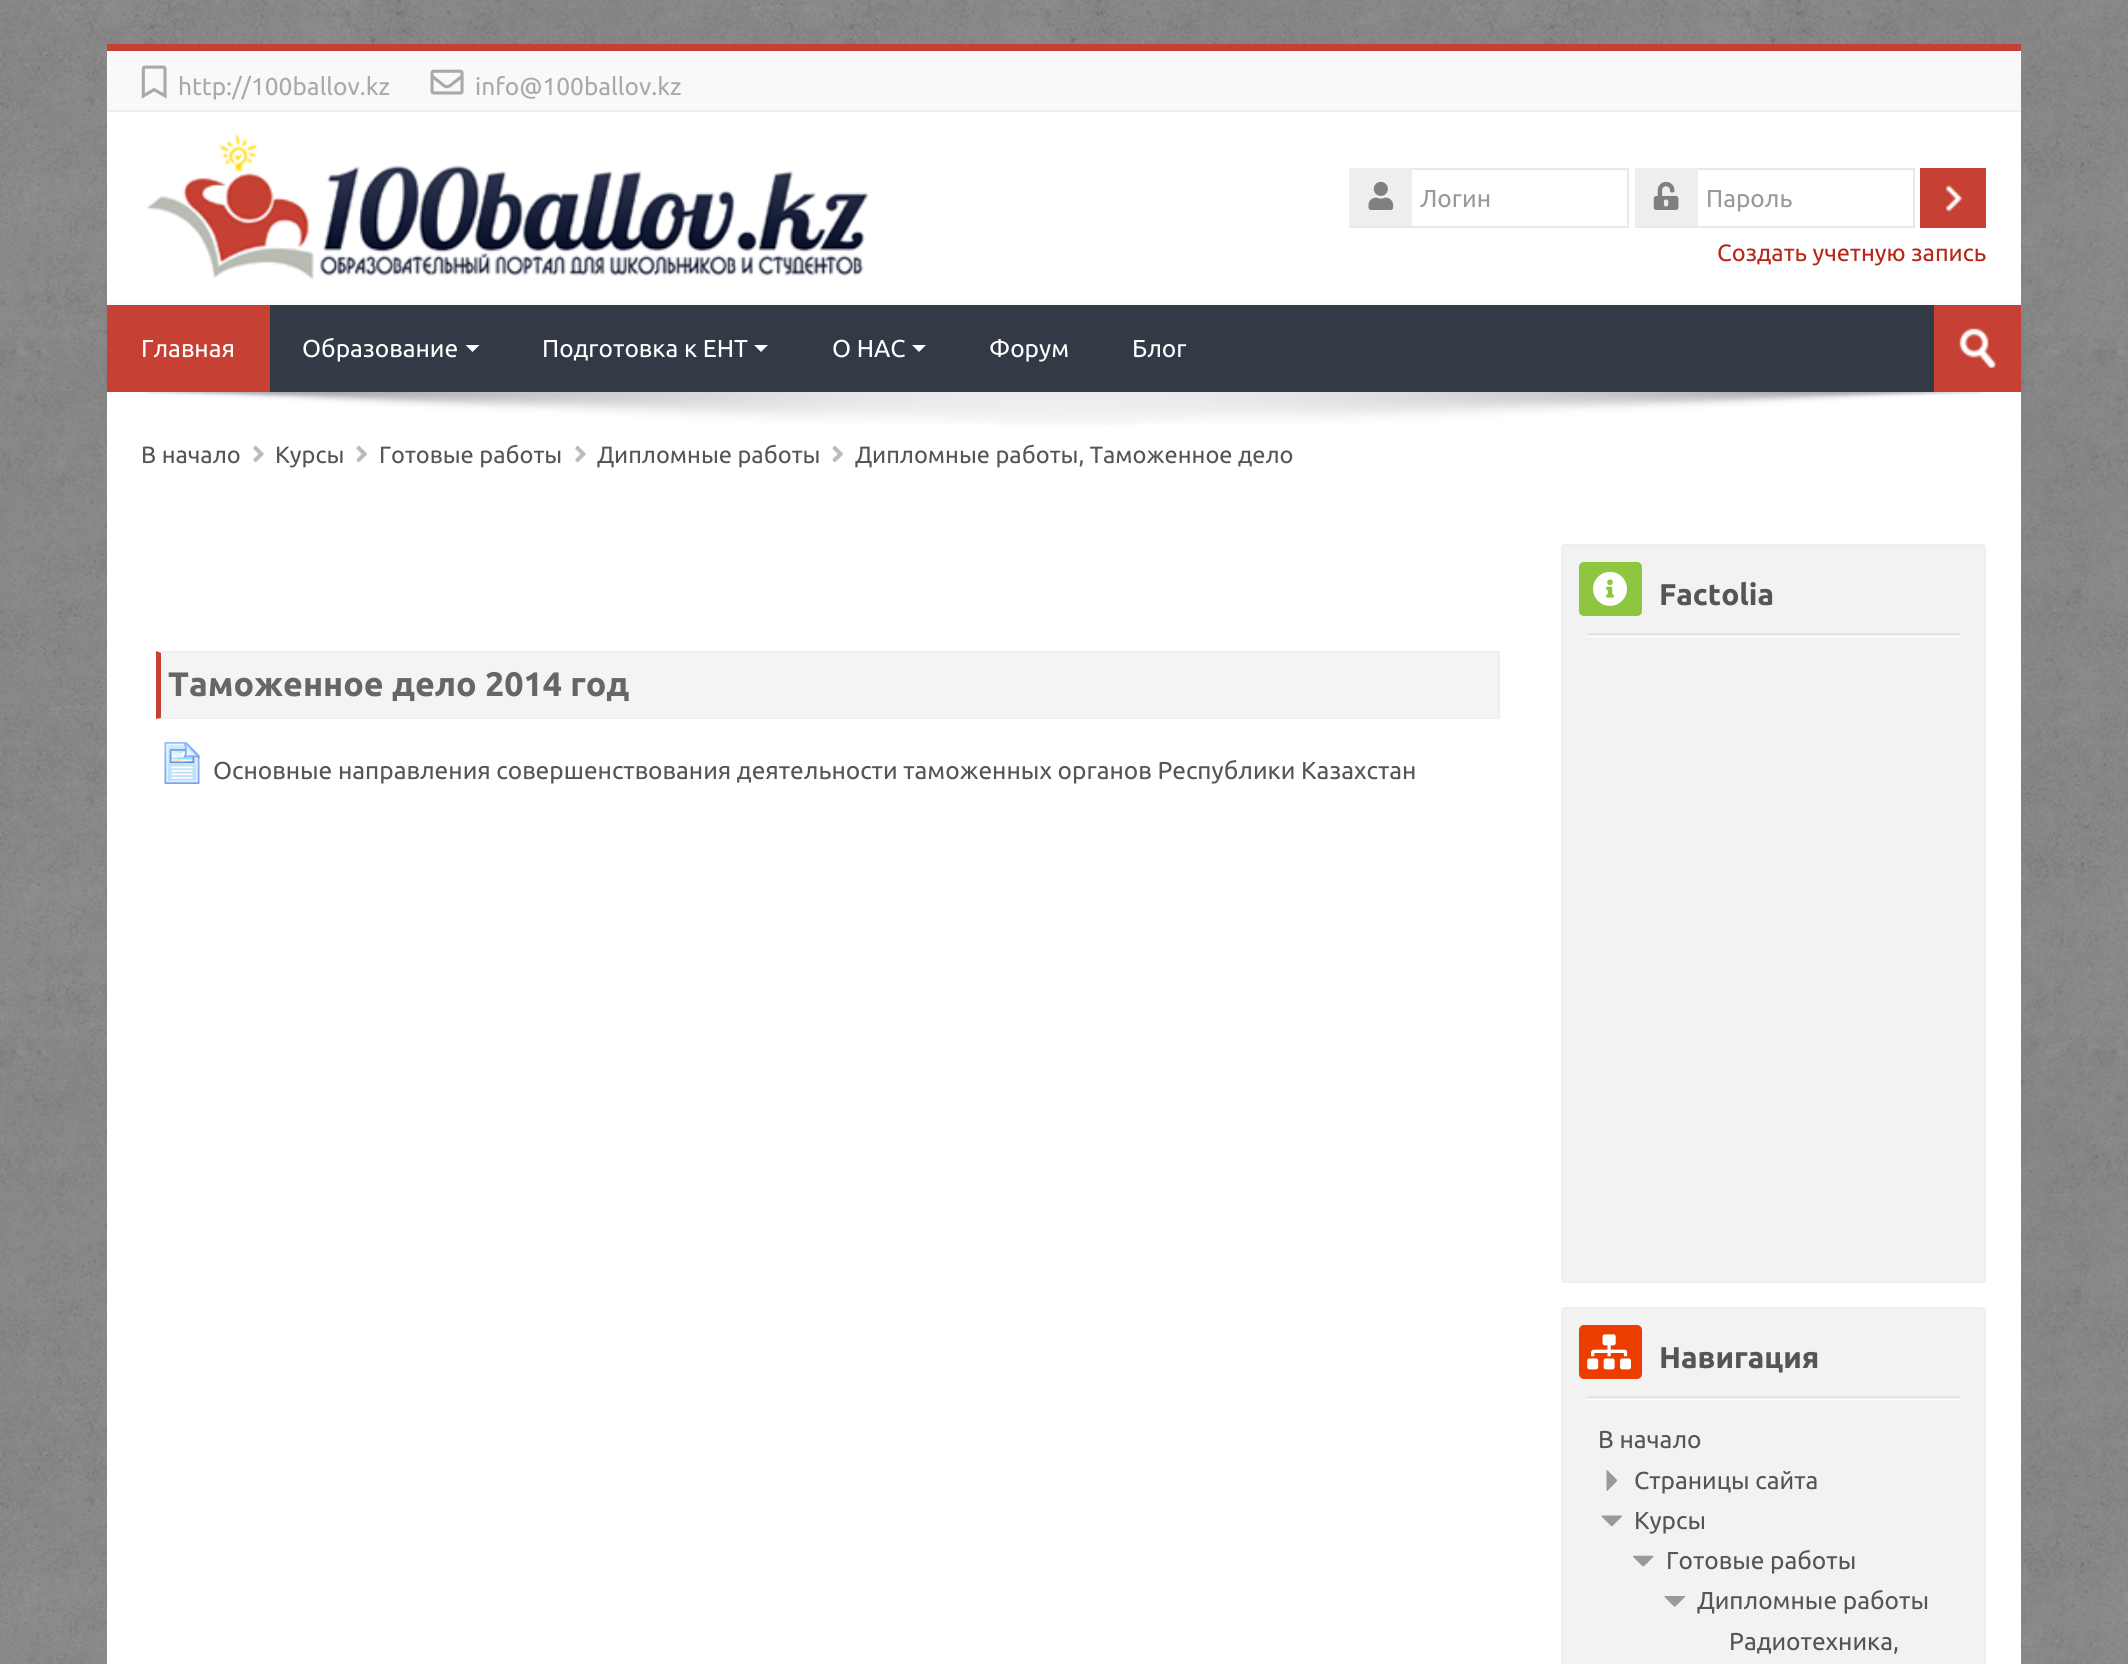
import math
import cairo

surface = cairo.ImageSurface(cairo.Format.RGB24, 2128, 1664)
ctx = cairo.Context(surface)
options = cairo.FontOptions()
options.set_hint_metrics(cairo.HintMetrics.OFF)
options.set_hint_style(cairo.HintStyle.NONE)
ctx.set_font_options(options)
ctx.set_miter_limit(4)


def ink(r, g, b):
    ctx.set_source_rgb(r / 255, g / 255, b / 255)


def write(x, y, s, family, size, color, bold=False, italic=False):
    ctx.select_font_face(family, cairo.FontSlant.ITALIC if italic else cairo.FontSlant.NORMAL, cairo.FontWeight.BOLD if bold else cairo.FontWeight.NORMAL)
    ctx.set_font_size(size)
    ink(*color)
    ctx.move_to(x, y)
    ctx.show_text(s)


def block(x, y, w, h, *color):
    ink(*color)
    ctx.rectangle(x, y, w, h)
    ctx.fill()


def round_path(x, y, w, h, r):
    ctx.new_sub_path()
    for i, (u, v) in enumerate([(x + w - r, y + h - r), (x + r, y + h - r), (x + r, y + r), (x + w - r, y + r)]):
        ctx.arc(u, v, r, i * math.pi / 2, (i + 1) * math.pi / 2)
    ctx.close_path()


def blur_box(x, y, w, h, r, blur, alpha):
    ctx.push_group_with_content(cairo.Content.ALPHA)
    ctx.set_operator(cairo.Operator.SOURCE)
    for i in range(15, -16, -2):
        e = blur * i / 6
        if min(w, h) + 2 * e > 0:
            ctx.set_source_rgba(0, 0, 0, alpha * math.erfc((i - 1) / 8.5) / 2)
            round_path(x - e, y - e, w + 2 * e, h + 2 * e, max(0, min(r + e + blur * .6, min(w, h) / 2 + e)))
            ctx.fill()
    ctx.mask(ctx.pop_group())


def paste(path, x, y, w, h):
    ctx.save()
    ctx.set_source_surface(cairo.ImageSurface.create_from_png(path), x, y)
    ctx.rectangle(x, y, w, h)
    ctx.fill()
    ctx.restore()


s1 = dict(family="Ubuntu", size=24.5, color=(169, 169, 169))
s2 = dict(family="Ubuntu", size=24.5, color=(153, 153, 153))
s3 = dict(family="Ubuntu", size=23.6, color=(183, 38, 22))
s4 = dict(family="Ubuntu", size=24.5, color=(255, 255, 255))
s5 = dict(family="Ubuntu", size=23.6, color=(85, 85, 85))
s6 = dict(family="Ubuntu", size=34, color=(102, 102, 102), bold=True)
s7 = dict(family="Ubuntu", size=24.5, color=(85, 85, 85))
s8 = dict(family="Ubuntu", size=30, color=(85, 85, 85), bold=True)

ink(255, 255, 255)
ctx.paint()
paste("pic1.png", 0, 0, 2128, 1664)
block(107, 44, 1914, 7, 198, 65, 51)
block(107, 51, 1914, 59, 249, 249, 249)
block(107, 110, 1914, 2, 237, 237, 237)
paste("pic2.png", 141, 65, 26, 34)
write(178, 95, "http://100ballov.kz", **s1)
paste("pic3.png", 430, 69, 34, 26)
write(475, 95, "info@100ballov.kz", **s1)
block(107, 112, 1914, 193, 255, 255, 255)
paste("pic4.png", 146, 133, 723, 147)
ctx.rectangle(1350, 169, 278, 58)
ink(233, 233, 233)
ctx.stroke()
block(1349, 168, 63, 58, 238, 238, 238)
paste("pic5.png", 1368, 181, 26, 29)
write(1420, 207, "Логин", **s2)
ctx.rectangle(1636, 169, 278, 58)
ink(233, 233, 233)
ctx.stroke()
block(1635, 168, 63, 58, 238, 238, 238)
paste("pic6.png", 1653, 181, 26, 29)
write(1706, 207, "Пароль", **s2)
block(1920, 168, 66, 60, 198, 65, 51)
paste("pic7.png", 1946, 185, 16, 27)
write(1717, 261, "Создать учетную запись", **s3)
ink(0, 0, 0)
blur_box(107, 306, 1914, 88, 0, 3.5, 0.07)
block(270, 305, 1664, 87, 50, 58, 69)
block(107, 305, 163, 87, 198, 65, 51)
write(141, 357, "Главная", **s4)
write(302, 357, "Образование", **s4)
ctx.new_path()
ctx.move_to(465.5, 345)
ctx.line_to(479.5, 345)
ctx.line_to(472.5, 352)
ctx.close_path()
ctx.fill()
write(542, 357, "Подготовка к ЕНТ", **s4)
ctx.new_path()
ctx.move_to(754, 345)
ctx.line_to(768, 345)
ctx.line_to(761, 352)
ctx.close_path()
ctx.fill()
write(832, 357, "О НАС", **s4)
ctx.new_path()
ctx.move_to(912, 345)
ctx.line_to(926, 345)
ctx.line_to(919, 352)
ctx.close_path()
ctx.fill()
write(989, 357, "Форум", **s4)
write(1132, 357, "Блог", **s4)
block(1934, 305, 87, 87, 198, 65, 51)
paste("pic8.png", 1959, 328, 37, 40)
block(107, 392, 1914, 1272, 255, 255, 255)
paste("pic9.png", 145, 392, 1838, 33)
write(141, 463, "В начало", **s5)
paste("pic10.png", 253, 445, 11, 18)
write(275, 463, "Курсы", **s5)
paste("pic11.png", 356, 445, 11, 17)
write(379, 463, "Готовые работы", **s5)
paste("pic10.png", 575, 445, 11, 18)
write(597, 463, "Дипломные работы", **s5)
paste("pic11.png", 832, 445, 11, 17)
write(855, 463, "Дипломные работы, Таможенное дело", **s5)
block(161, 653, 1337, 65, 244, 244, 244)
ink(238, 238, 238)
ctx.new_path()
ctx.move_to(156, 651)
ctx.line_to(1500, 651)
ctx.line_to(1498, 653)
ctx.line_to(161, 653)
ctx.close_path()
ctx.fill()
block(1498, 651, 2, 68, 238, 238, 238)
ctx.new_path()
ctx.move_to(1500, 719)
ctx.line_to(156, 719)
ctx.line_to(161, 718)
ctx.line_to(1498, 718)
ctx.close_path()
ctx.fill()
ink(198, 65, 51)
ctx.new_path()
ctx.move_to(156, 719)
ctx.line_to(156, 651)
ctx.line_to(161, 653)
ctx.line_to(161, 718)
ctx.close_path()
ctx.fill()
write(168, 696, "Таможенное дело 2014 год", **s6)
paste("pic12.png", 164, 742, 36, 42)
write(213, 779, "Основные направления совершенствования деятельности таможенных органов Республики Казахстан", **s7)
ink(242, 242, 242)
round_path(1562, 545, 423, 737, 3)
ctx.fill_preserve()
ink(239, 239, 239)
ctx.stroke()
paste("pic13.png", 1587, 633, 373, 4)
ink(142, 198, 63)
round_path(1579, 562, 63, 54, 5)
ctx.fill()
paste("pic14.png", 1593, 571, 34, 35)
write(1659, 605, "Factolia", **s8)
ink(242, 242, 242)
round_path(1562, 1308, 423, 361, 3)
ctx.fill_preserve()
ink(239, 239, 239)
ctx.stroke()
paste("pic13.png", 1587, 1396, 373, 4)
ink(235, 61, 0)
round_path(1579, 1325, 63, 54, 5)
ctx.fill()
paste("pic15.png", 1587, 1334, 44, 36)
write(1659, 1368, "Навигация", **s8)
write(1598, 1448, "В начало", **s7)
paste("pic16.png", 1606, 1470, 11, 21)
write(1634, 1489, "Страницы сайта", **s7)
paste("pic17.png", 1601, 1515, 21, 11)
write(1634, 1529, "Курсы", **s7)
paste("pic18.png", 1633, 1555, 21, 12)
write(1666, 1569, "Готовые работы", **s7)
paste("pic19.png", 1664, 1596, 21, 11)
write(1697, 1609, "Дипломные работы", **s7)
write(1729, 1650, "Радиотехника,", **s7)
surface.write_to_png("screenshot.png")
